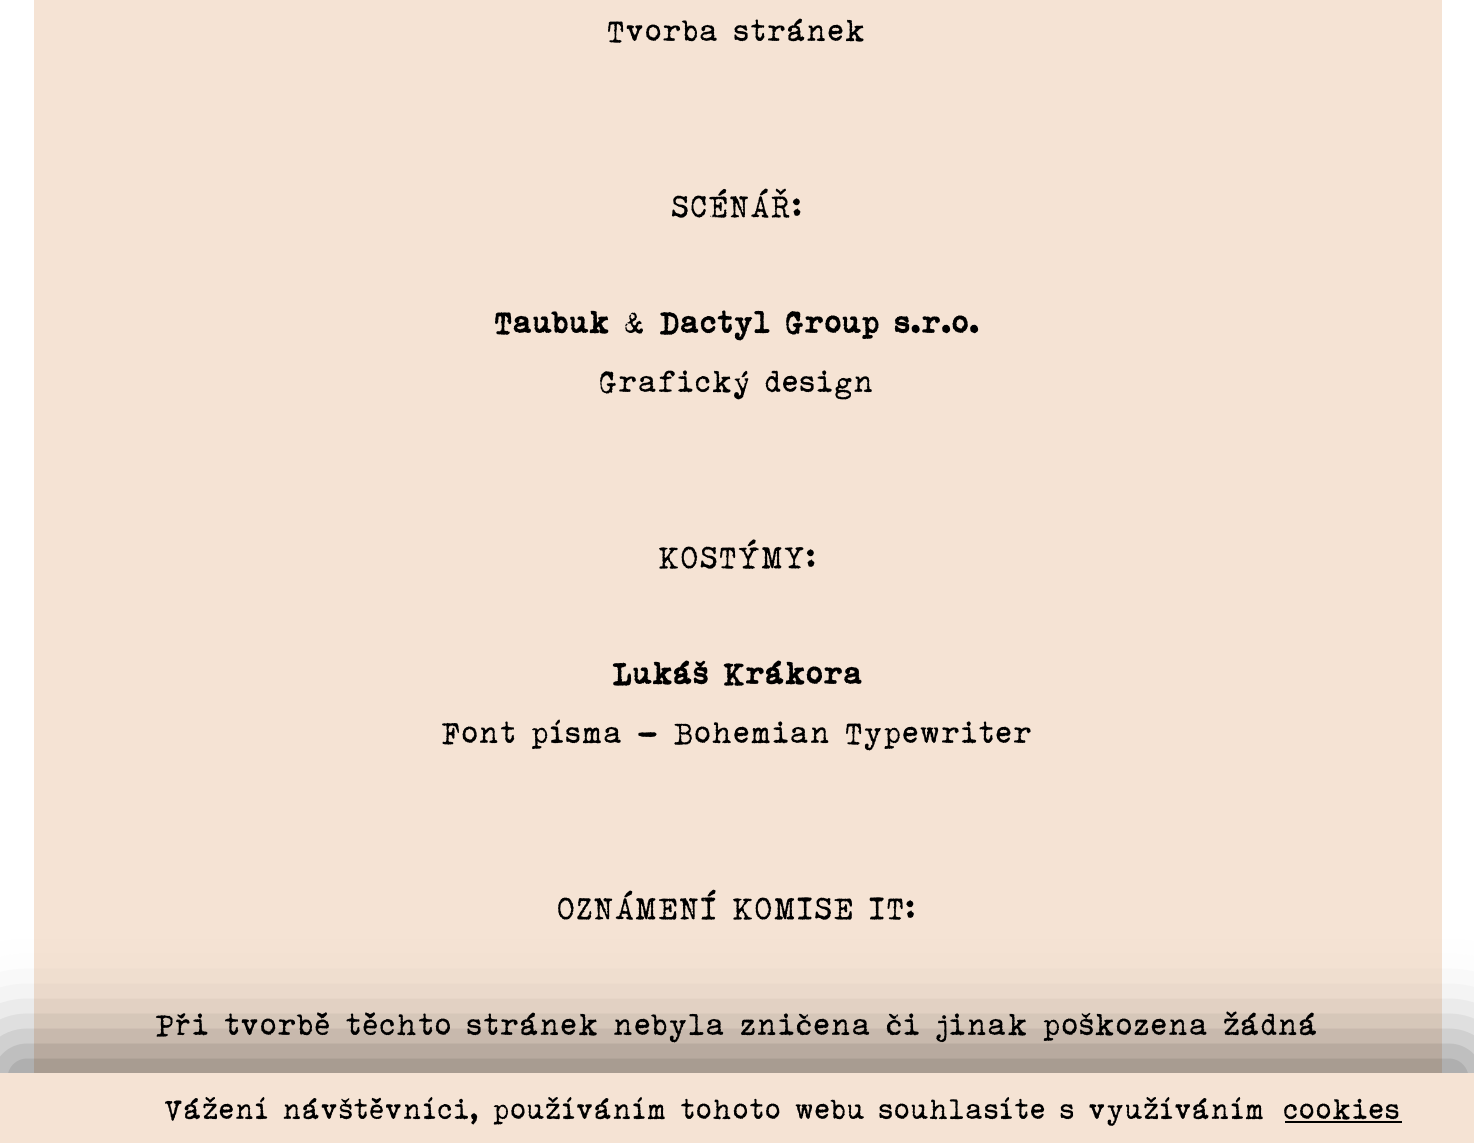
import math
import cairo

surface = cairo.ImageSurface(cairo.Format.RGB24, 1474, 1143)
ctx = cairo.Context(surface)
options = cairo.FontOptions()
options.set_hint_metrics(cairo.HintMetrics.OFF)
options.set_hint_style(cairo.HintStyle.NONE)
ctx.set_font_options(options)
ctx.set_miter_limit(4)


def ink(r, g, b):
    ctx.set_source_rgb(r / 255, g / 255, b / 255)


def write(x, y, s, family, size, color, bold=False, italic=False):
    ctx.select_font_face(family, cairo.FontSlant.ITALIC if italic else cairo.FontSlant.NORMAL, cairo.FontWeight.BOLD if bold else cairo.FontWeight.NORMAL)
    ctx.set_font_size(size)
    ink(*color)
    ctx.move_to(x, y)
    ctx.show_text(s)


def block(x, y, w, h, *color):
    ink(*color)
    ctx.rectangle(x, y, w, h)
    ctx.fill()


def round_path(x, y, w, h, r):
    ctx.new_sub_path()
    for i, (u, v) in enumerate([(x + w - r, y + h - r), (x + r, y + h - r), (x + r, y + r), (x + w - r, y + r)]):
        ctx.arc(u, v, r, i * math.pi / 2, (i + 1) * math.pi / 2)
    ctx.close_path()


def blur_box(x, y, w, h, r, blur, alpha):
    ctx.push_group_with_content(cairo.Content.ALPHA)
    ctx.set_operator(cairo.Operator.SOURCE)
    for i in range(15, -16, -2):
        e = blur * i / 6
        if min(w, h) + 2 * e > 0:
            ctx.set_source_rgba(0, 0, 0, alpha * math.erfc((i - 1) / 8.5) / 2)
            round_path(x - e, y - e, w + 2 * e, h + 2 * e, max(0, min(r + e + blur * .6, min(w, h) / 2 + e)))
            ctx.fill()
    ctx.mask(ctx.pop_group())


s1 = dict(family="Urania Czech", size=36, color=(0, 0, 0))
s2 = dict(family="Urania Czech", size=36, color=(0, 0, 0), bold=True)
s3 = dict(family="Urania Czech", size=33.75, color=(0, 0, 0))

ink(255, 255, 255)
ctx.paint()
block(34, 0, 1408, 1073, 245, 227, 212)
write(608, 41, "Tvorba stránek", **s1)
write(672, 216, "SCÉNÁŘ:", **s1)
write(495, 333, "Taubuk", **s2)
write(625, 333, "&", **s1)
write(660, 333, "Dactyl Group s.r.o.", **s2)
write(600, 392, "Grafický design", **s1)
write(659, 567, "KOSTÝMY:", **s1)
write(613, 684, "Lukáš Krákora", **s2)
write(442, 743, "Font písma - Bohemian Typewriter", **s1)
write(558, 918, "OZNÁMENÍ KOMISE IT:", **s1)
write(156, 1035, "Při tvorbě těchto stránek nebyla zničena či jinak poškozena žádná", **s1)
ink(0, 0, 0)
blur_box(0, 1051, 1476, 70, 0, 45, 0.5)
block(0, 1073, 1474, 70, 245, 227, 212)
write(165, 1119, "Vážení návštěvníci, používáním tohoto webu souhlasíte s využíváním", **s3)
write(1284, 1119, "cookies", **s3)
block(1285, 1121, 117, 2, 1, 2, 0)
surface.write_to_png("screenshot.png")
